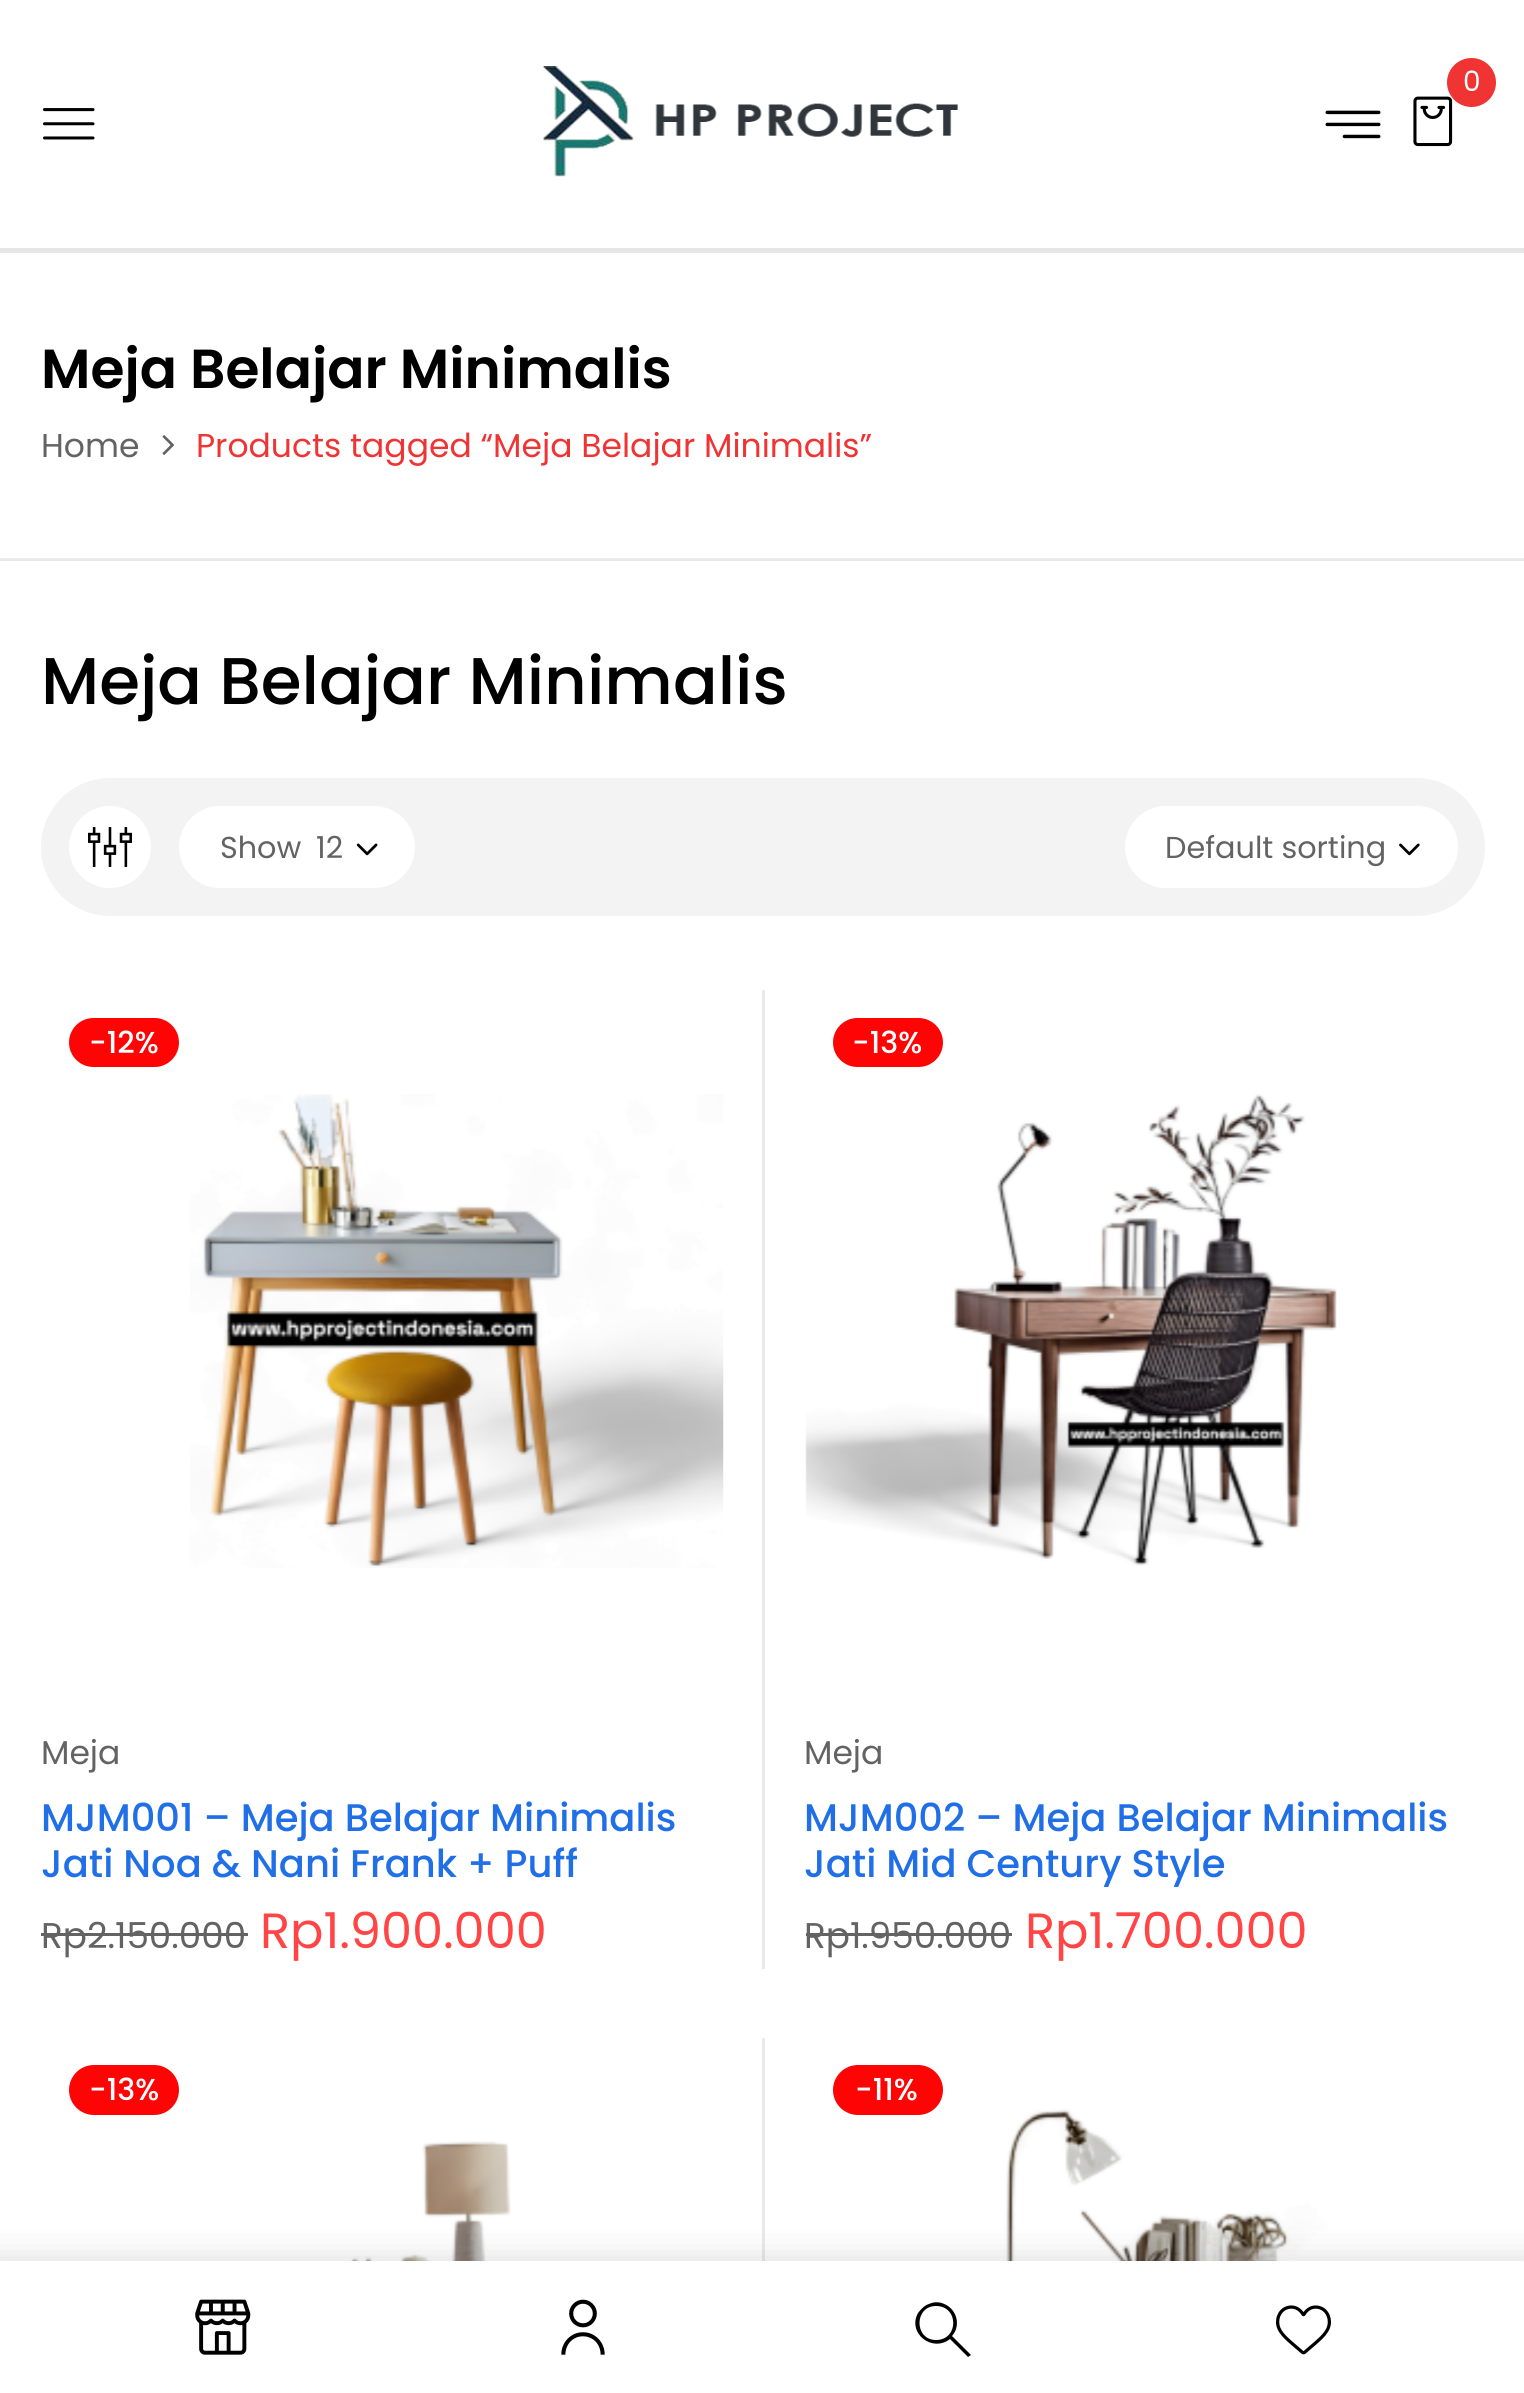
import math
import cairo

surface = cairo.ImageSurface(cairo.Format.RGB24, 1524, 2393)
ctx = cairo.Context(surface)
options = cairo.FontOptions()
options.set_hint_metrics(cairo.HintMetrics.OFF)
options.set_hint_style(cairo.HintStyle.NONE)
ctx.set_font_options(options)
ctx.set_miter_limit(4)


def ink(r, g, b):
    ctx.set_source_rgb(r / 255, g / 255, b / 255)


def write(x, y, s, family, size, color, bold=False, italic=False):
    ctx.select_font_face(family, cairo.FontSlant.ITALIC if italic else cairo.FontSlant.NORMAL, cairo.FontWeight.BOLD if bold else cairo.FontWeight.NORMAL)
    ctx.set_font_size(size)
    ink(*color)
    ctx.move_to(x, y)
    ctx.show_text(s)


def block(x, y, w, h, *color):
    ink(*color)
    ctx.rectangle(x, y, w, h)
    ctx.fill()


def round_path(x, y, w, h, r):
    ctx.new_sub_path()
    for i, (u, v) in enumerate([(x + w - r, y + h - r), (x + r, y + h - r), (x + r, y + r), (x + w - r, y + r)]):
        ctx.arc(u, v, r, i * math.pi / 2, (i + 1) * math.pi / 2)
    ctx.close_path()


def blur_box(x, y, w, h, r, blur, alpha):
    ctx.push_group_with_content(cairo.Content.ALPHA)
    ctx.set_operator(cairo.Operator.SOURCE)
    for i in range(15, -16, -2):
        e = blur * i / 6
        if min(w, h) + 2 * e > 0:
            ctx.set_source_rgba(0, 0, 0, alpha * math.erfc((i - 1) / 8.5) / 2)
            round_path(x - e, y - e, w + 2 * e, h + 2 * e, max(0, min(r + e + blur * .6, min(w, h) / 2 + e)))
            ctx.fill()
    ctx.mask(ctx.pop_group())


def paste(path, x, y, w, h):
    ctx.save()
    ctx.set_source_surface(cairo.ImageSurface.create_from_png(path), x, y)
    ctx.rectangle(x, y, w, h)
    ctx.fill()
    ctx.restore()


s1 = dict(family="Poppins", size=28, color=(255, 255, 255))
s2 = dict(family="Poppins SemiBold", size=55, color=(0, 0, 0))
s3 = dict(family="Poppins", size=33, color=(99, 99, 99))
s4 = dict(family="Poppins", size=33, color=(240, 51, 51))
s5 = dict(family="Poppins Medium", size=66, color=(0, 0, 0))
s6 = dict(family="Poppins", size=30.25, color=(99, 99, 99))
s7 = dict(family="Poppins Medium", size=30.25, color=(255, 255, 255))
s8 = dict(family="Poppins Medium", size=38.5, color=(33, 111, 230))
s9 = dict(family="Poppins", size=35.75, color=(99, 99, 99))
s10 = dict(family="Poppins", size=49.5, color=(255, 69, 69))

ink(255, 255, 255)
ctx.paint()
block(0, 248, 1524, 3, 229, 229, 229)
paste("pic1.png", 543, 66, 415, 115)
paste("pic2.png", 1413, 96, 40, 51)
ink(240, 51, 51)
ctx.arc(1471.5, 82.5, 24.5, 0, 2 * math.pi)
ctx.fill()
write(1463, 91, "0", **s1)
paste("pic3.png", 1325, 110, 56, 29)
paste("pic4.png", 43, 108, 52, 32)
paste("pic14.png", 151, 2141, 462, 120)
block(762, 2038, 3, 223, 233, 233, 233)
paste("pic15.png", 936, 2109, 424, 152)
ink(143, 143, 143)
blur_box(-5, 2258, 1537, 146, 0, 16.5, 0.3)
block(0, 2261, 1524, 132, 255, 255, 255)
paste("pic5.png", 195, 2299, 56, 56)
paste("pic6.png", 561, 2299, 44, 56)
ink(0, 0, 0)
ctx.new_path()
ctx.move_to(971, 2355)
ctx.line_to(952, 2336)
ctx.curve_to(960, 2327, 958, 2313, 948, 2306)
ctx.curve_to(942, 2302, 935, 2301, 929, 2304)
ctx.curve_to(925, 2305, 921, 2309, 918, 2313)
ctx.curve_to(907, 2333, 932, 2353, 950, 2339)
ctx.line_to(968, 2357)
ctx.close_path()
ctx.move_to(936, 2340)
ctx.curve_to(914, 2340, 914, 2306, 936, 2306)
ctx.curve_to(959, 2306, 959, 2340, 936, 2340)
ctx.close_path()
ctx.fill()
paste("pic7.png", 1276, 2305, 55, 50)
block(0, 251, 1524, 2, 233, 233, 233)
block(0, 558, 1524, 3, 233, 233, 233)
write(41, 388, "Meja Belajar Minimalis", **s2)
write(41, 457, "Home", **s3)
paste("pic8.png", 162, 435, 12, 20)
write(196, 457, "Products tagged “Meja Belajar Minimalis”", **s4)
write(41, 704, "Meja Belajar Minimalis", **s5)
ink(243, 243, 243)
round_path(41, 778, 1444, 138, 69)
ctx.fill()
ink(255, 255, 255)
ctx.arc(110, 847, 41, 0, 2 * math.pi)
ctx.fill()
paste("pic9.png", 88, 827, 44, 40)
round_path(179, 806, 236, 82, 41)
ctx.fill()
write(220, 858, "Show", **s6)
write(316, 858, "12", **s6)
paste("pic10.png", 356, 843, 22, 13)
ink(255, 255, 255)
round_path(1125, 806, 333, 82, 41)
ctx.fill()
write(1165, 858, "Default sorting", **s6)
paste("pic11.png", 1399, 843, 21, 13)
ink(255, 4, 4)
round_path(69, 1018, 110, 49, 24.5)
ctx.fill()
write(89, 1053, "-12%", **s7)
paste("pic12.png", 190, 1094, 534, 474)
block(762, 990, 3, 979, 233, 233, 233)
write(41, 1764, "Meja", **s3)
write(41, 1831, "MJM001 – Meja Belajar Minimalis", **s8)
write(41, 1877, "Jati Noa & Nani Frank + Puff", **s8)
write(41, 1948, "Rp2.150.000", **s9)
block(41, 1933, 207, 3, 99, 99, 99)
write(260, 1948, "Rp1.900.000", **s10)
ink(255, 4, 4)
round_path(833, 1018, 110, 49, 24.5)
ctx.fill()
write(852, 1053, "-13%", **s7)
paste("pic13.png", 805, 1094, 532, 472)
write(804, 1764, "Meja", **s3)
write(804, 1831, "MJM002 – Meja Belajar Minimalis", **s8)
write(804, 1877, "Jati Mid Century Style", **s8)
write(804, 1948, "Rp1.950.000", **s9)
block(806, 1933, 206, 3, 99, 99, 99)
write(1025, 1948, "Rp1.700.000", **s10)
ink(255, 4, 4)
round_path(69, 2065, 110, 50, 25)
ctx.fill()
write(89, 2100, "-13%", **s7)
ink(255, 4, 4)
round_path(833, 2065, 110, 50, 25)
ctx.fill()
write(855, 2100, "-11%", **s7)
surface.write_to_png("screenshot.png")
